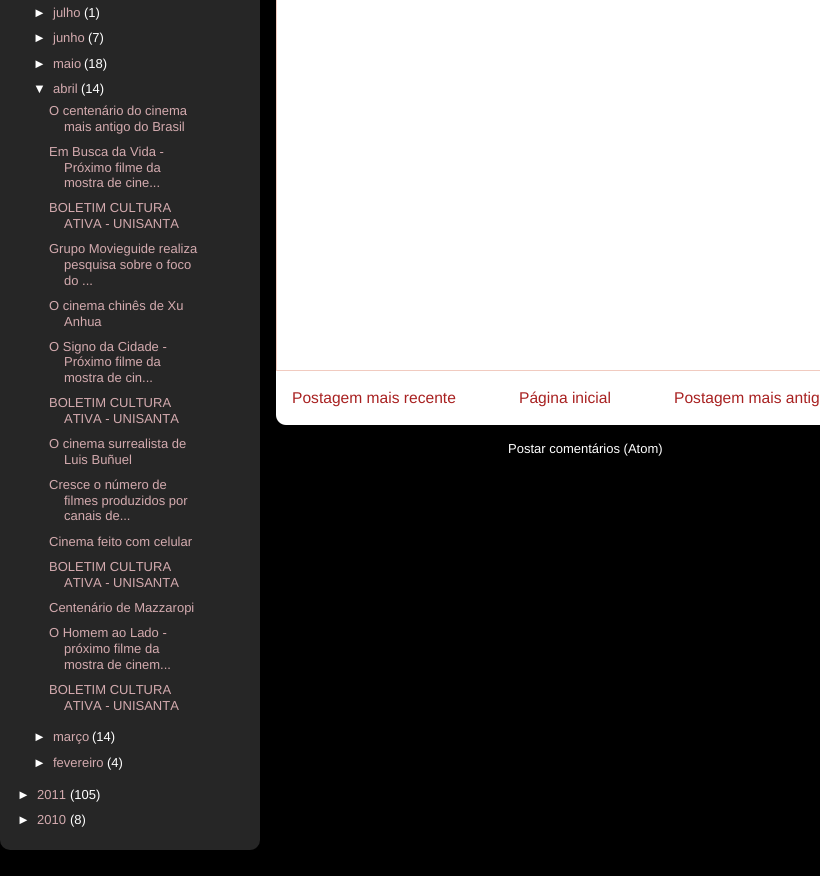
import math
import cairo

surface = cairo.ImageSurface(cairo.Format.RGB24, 820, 876)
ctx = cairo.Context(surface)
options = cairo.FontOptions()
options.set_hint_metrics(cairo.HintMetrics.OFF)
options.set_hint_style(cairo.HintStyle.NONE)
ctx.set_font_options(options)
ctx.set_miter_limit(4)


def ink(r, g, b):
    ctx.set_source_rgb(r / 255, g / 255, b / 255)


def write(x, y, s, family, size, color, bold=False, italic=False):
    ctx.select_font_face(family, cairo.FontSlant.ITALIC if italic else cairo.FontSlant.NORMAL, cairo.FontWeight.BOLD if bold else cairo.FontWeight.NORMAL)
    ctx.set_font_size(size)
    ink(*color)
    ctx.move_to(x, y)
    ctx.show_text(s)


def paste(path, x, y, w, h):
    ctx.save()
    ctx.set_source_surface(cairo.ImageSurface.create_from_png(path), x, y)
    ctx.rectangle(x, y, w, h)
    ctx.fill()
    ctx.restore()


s1 = dict(family="Liberation Sans", size=13, color=(255, 255, 255))
s2 = dict(family="Liberation Sans", size=13, color=(211, 170, 174))
s3 = dict(family="Liberation Sans", size=15.6, color=(168, 33, 33))

ink(0, 0, 0)
ctx.paint()
paste("pic1.png", 0, 0, 260, 850)
write(33, 17, "►", **s1)
write(53, 17, "julho", **s2)
write(84, 17, "(1)", **s1)
write(33, 42, "►", **s1)
write(53, 42, "junho", **s2)
write(88, 42, "(7)", **s1)
write(33, 68, "►", **s1)
write(53, 68, "maio", **s2)
write(84, 68, "(18)", **s1)
write(33, 93, "▼", **s1)
write(53, 93, "abril", **s2)
write(81, 93, "(14)", **s1)
write(49, 115, "O centenário do cinema", **s2)
write(64, 131, "mais antigo do Brasil", **s2)
write(49, 156, "Em Busca da Vida -", **s2)
write(64, 172, "Próximo filme da", **s2)
write(64, 187, "mostra de cine...", **s2)
write(49, 212, "BOLETIM CULTURA", **s2)
write(64, 228, "ATIVA - UNISANTA", **s2)
write(49, 253, "Grupo Movieguide realiza", **s2)
write(64, 269, "pesquisa sobre o foco", **s2)
write(64, 285, "do ...", **s2)
write(49, 310, "O cinema chinês de Xu", **s2)
write(64, 326, "Anhua", **s2)
write(49, 351, "O Signo da Cidade -", **s2)
write(64, 366, "Próximo filme da", **s2)
write(64, 382, "mostra de cin...", **s2)
write(49, 407, "BOLETIM CULTURA", **s2)
write(64, 423, "ATIVA - UNISANTA", **s2)
write(49, 448, "O cinema surrealista de", **s2)
write(64, 464, "Luis Buñuel", **s2)
write(49, 489, "Cresce o número de", **s2)
write(64, 505, "filmes produzidos por", **s2)
write(64, 520, "canais de...", **s2)
write(49, 546, "Cinema feito com celular", **s2)
write(49, 571, "BOLETIM CULTURA", **s2)
write(64, 587, "ATIVA - UNISANTA", **s2)
write(49, 612, "Centenário de Mazzaropi", **s2)
write(49, 637, "O Homem ao Lado -", **s2)
write(64, 653, "próximo filme da", **s2)
write(64, 669, "mostra de cinem...", **s2)
write(49, 694, "BOLETIM CULTURA", **s2)
write(64, 710, "ATIVA - UNISANTA", **s2)
write(33, 741, "►", **s1)
write(53, 741, "março", **s2)
write(92, 741, "(14)", **s1)
write(33, 767, "►", **s1)
write(53, 767, "fevereiro", **s2)
write(107, 767, "(4)", **s1)
write(17, 799, "►", **s1)
write(37, 799, "2011", **s2)
write(70, 799, "(105)", **s1)
write(17, 824, "►", **s1)
write(37, 824, "2010", **s2)
write(70, 824, "(8)", **s1)
ctx.rectangle(276.5, -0.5, 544, 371)
ctx.fill_preserve()
ink(241, 203, 192)
ctx.set_line_width(1)
ctx.stroke()
ink(255, 255, 255)
ctx.new_path()
ctx.move_to(276, 371)
ctx.line_to(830, 371)
ctx.line_to(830, 415)
ctx.curve_to(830, 420.5, 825.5, 425, 820, 425)
ctx.line_to(286, 425)
ctx.curve_to(280.5, 425, 276, 420.5, 276, 415)
ctx.close_path()
ctx.fill()
write(292, 403, "Postagem mais recente", **s3)
write(519, 403, "Página inicial", **s3)
write(674, 403, "Postagem mais antig", **s3)
write(508, 453, "Postar comentários (Atom)", **s1)
surface.write_to_png("screenshot.png")
